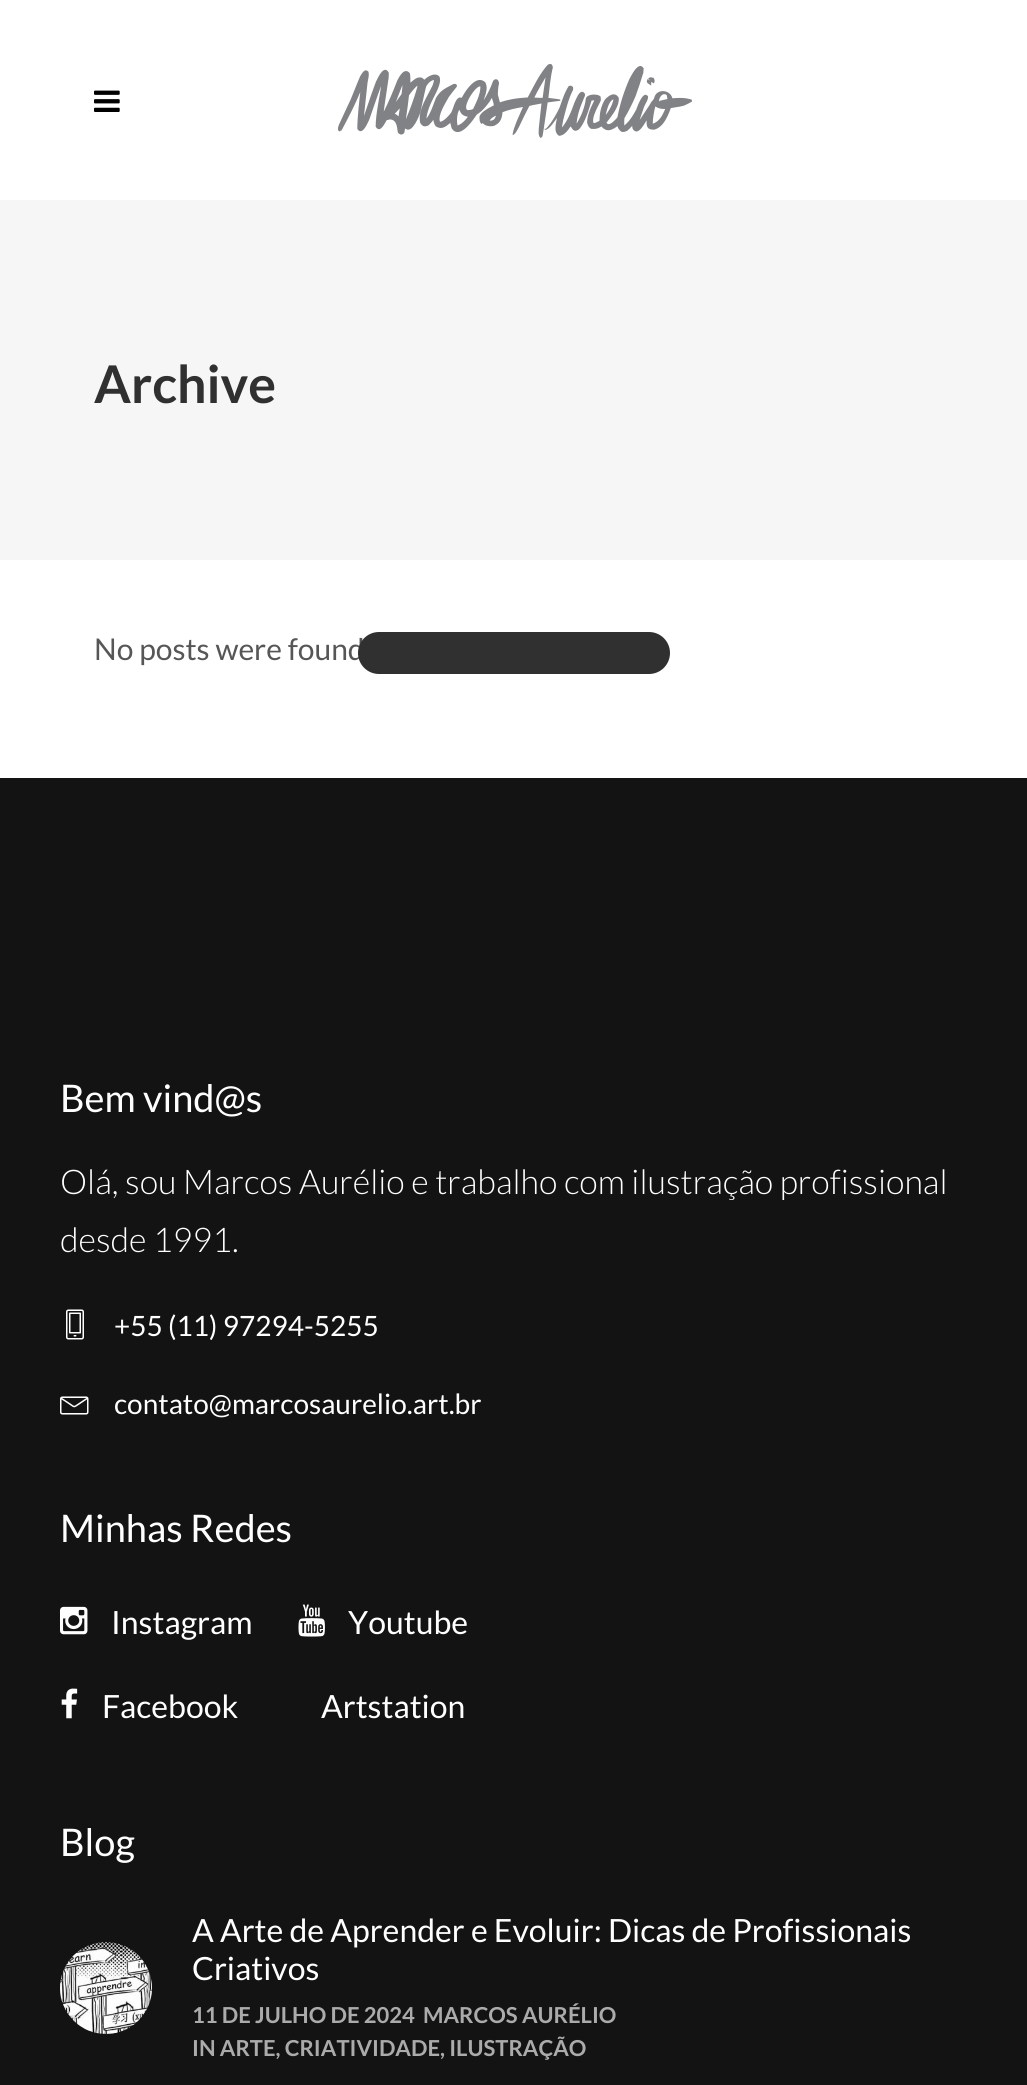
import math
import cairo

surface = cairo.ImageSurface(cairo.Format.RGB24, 1027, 2085)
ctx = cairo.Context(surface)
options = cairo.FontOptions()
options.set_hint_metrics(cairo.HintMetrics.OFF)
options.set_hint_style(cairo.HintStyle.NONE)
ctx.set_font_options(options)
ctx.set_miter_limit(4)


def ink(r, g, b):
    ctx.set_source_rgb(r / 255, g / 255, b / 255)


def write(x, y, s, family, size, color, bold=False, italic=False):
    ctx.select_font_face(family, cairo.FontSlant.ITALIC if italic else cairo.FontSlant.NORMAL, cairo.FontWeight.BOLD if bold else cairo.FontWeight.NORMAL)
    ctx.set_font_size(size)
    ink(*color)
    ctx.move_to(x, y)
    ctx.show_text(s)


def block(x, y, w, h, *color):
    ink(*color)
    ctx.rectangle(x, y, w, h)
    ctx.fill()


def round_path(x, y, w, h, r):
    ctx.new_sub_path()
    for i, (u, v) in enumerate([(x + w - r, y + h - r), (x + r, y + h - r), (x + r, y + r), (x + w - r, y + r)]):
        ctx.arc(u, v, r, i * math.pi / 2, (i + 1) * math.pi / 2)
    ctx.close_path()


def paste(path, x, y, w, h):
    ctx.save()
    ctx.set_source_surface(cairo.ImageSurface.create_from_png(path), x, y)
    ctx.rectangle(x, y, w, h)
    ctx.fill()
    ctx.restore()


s1 = dict(family="Lato", size=52, color=(48, 48, 48), bold=True)
s2 = dict(family="Lato", size=30, color=(86, 86, 86))
s3 = dict(family="Lato", size=38, color=(255, 255, 255))
s4 = dict(family="Lato Light", size=34, color=(255, 255, 255))
s5 = dict(family="Lato", size=28, color=(255, 255, 255))
s6 = dict(family="Lato", size=32, color=(255, 255, 255))
s7 = dict(family="Lato", size=22, color=(171, 171, 171), bold=True)

ink(255, 255, 255)
ctx.paint()
paste("pic1.png", 94, 90, 26, 22)
paste("pic2.png", 338, 64, 354, 74)
block(0, 200, 1027, 360, 246, 246, 246)
write(94, 403, "Archive", **s1)
write(94, 660, "No posts were found", **s2)
ink(48, 48, 48)
round_path(358, 632, 312, 42, 21)
ctx.fill()
block(0, 778, 1027, 1307, 19, 19, 19)
write(60, 1112, "Bem vind@s", **s3)
write(60, 1194, "Olá, sou Marcos Aurélio e trabalho com ilustração profissional", **s4)
write(60, 1252, "desde 1991.", **s4)
paste("pic3.png", 66, 1309, 18, 31)
write(114, 1336, "+55 (11) 97294-5255", **s5)
paste("pic4.png", 60, 1396, 29, 19)
write(114, 1414, "contato@marcosaurelio.art.br", **s5)
write(60, 1542, "Minhas Redes", **s3)
paste("pic5.png", 60, 1606, 28, 29)
write(111, 1634, "Instagram", **s6)
paste("pic6.png", 61, 1688, 17, 31)
write(102, 1718, "Facebook", **s6)
paste("pic7.png", 298, 1604, 27, 33)
write(348, 1634, "Youtube", **s6)
write(321, 1718, "Artstation", **s6)
write(60, 1856, "Blog", **s3)
paste("pic8.png", 60, 1942, 92, 92)
write(192, 1942, "A Arte de Aprender e Evoluir: Dicas de Profissionais", **s6)
write(192, 1980, "Criativos", **s6)
write(192, 2023, "11 DE JULHO DE 2024", **s7)
write(423, 2023, "MARCOS AURÉLIO", **s7)
write(192, 2056, "IN ARTE, CRIATIVIDADE, ILUSTRAÇÃO", **s7)
surface.write_to_png("screenshot.png")
